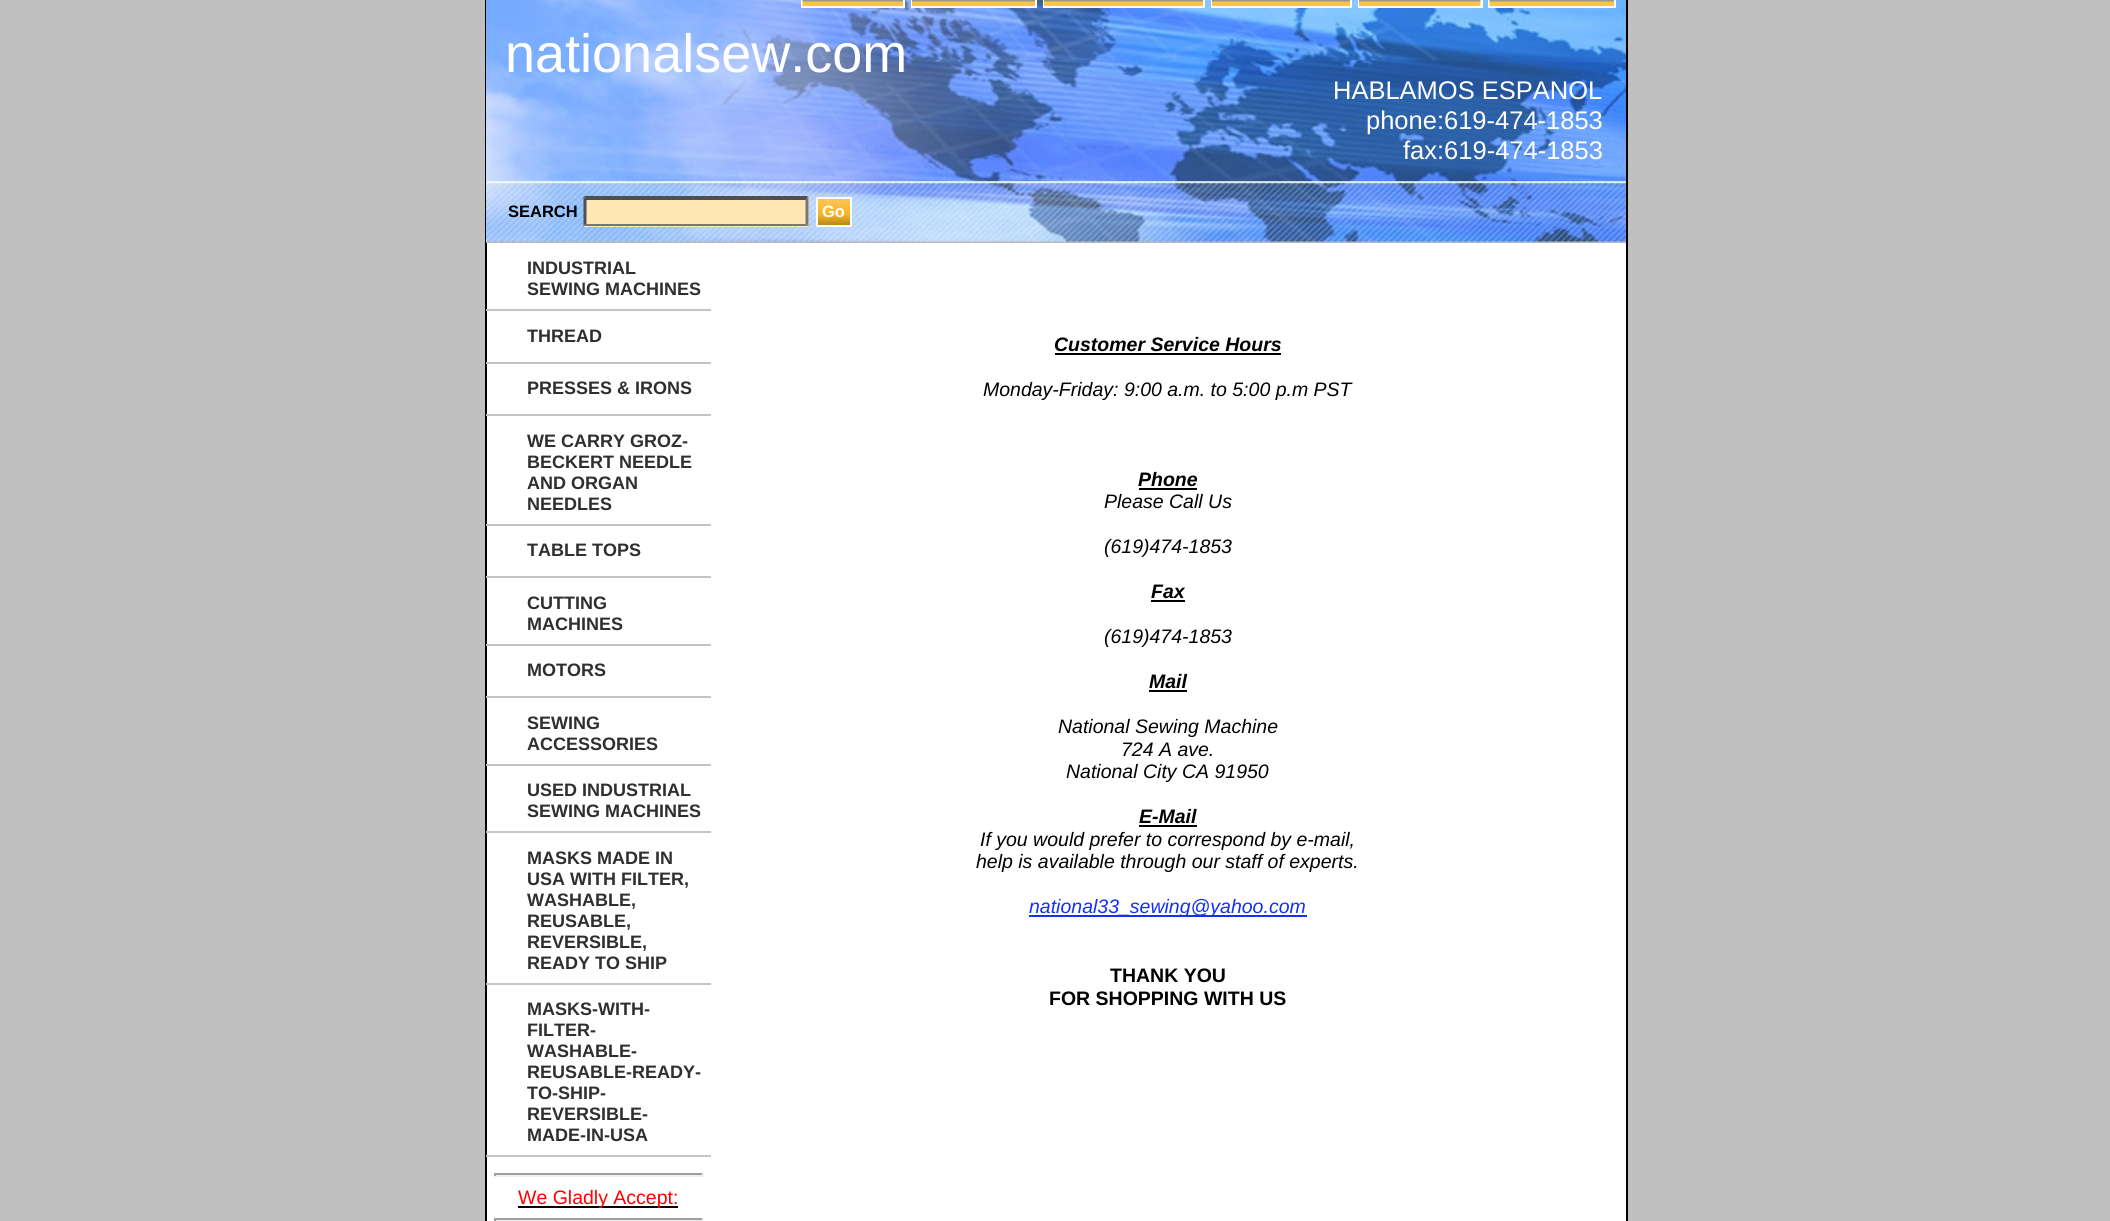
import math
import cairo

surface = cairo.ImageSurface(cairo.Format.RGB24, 2110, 1221)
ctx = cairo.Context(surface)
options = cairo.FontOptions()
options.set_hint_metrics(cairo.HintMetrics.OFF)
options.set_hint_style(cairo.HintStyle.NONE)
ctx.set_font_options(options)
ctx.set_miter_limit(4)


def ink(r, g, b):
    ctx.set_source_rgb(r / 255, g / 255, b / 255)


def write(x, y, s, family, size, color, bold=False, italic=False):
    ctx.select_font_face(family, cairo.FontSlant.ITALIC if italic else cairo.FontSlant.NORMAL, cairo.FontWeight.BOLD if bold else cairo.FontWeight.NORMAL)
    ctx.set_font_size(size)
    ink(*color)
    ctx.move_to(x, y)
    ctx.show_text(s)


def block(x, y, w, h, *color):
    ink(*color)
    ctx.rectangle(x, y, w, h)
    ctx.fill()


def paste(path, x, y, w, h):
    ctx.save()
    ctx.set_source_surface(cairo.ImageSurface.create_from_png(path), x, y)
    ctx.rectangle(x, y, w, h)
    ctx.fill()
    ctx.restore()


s1 = dict(family="Liberation Sans", size=54, color=(255, 255, 255))
s2 = dict(family="Liberation Sans", size=25.5, color=(255, 255, 255))
s3 = dict(family="Liberation Sans", size=16.5, color=(0, 0, 0), bold=True)
s4 = dict(family="Liberation Sans", size=16.5, color=(255, 255, 255), bold=True)
s5 = dict(family="Liberation Sans", size=18, color=(47, 47, 47), bold=True)
s6 = dict(family="Liberation Sans", size=19.5, color=(255, 0, 0))
s7 = dict(family="Liberation Sans", size=19.5, color=(0, 0, 0), bold=True, italic=True)
s8 = dict(family="Liberation Sans", size=19.5, color=(0, 0, 0), italic=True)
s9 = dict(family="Liberation Sans", size=19.5, color=(20, 47, 250), italic=True)
s10 = dict(family="Liberation Sans", size=19.5, color=(0, 0, 0), bold=True)

ink(192, 192, 192)
ctx.paint()
block(487, 181, 1139, 1040, 255, 255, 255)
ctx.rectangle(486, -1, 1141, 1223)
ink(0, 0, 0)
ctx.stroke()
paste("pic1.png", 486, 0, 1140, 182)
block(903, 0, 2, 8, 255, 255, 255)
block(801, 6, 104, 2, 255, 255, 255)
block(801, 0, 2, 8, 255, 255, 255)
paste("pic2.png", 802, 0, 101, 6)
block(1035, 0, 2, 8, 255, 255, 255)
block(911, 6, 126, 2, 255, 255, 255)
block(911, 0, 2, 8, 255, 255, 255)
paste("pic3.png", 912, 0, 123, 6)
block(1203, 0, 2, 8, 255, 255, 255)
block(1043, 6, 162, 2, 255, 255, 255)
block(1043, 0, 2, 8, 255, 255, 255)
paste("pic4.png", 1044, 0, 159, 6)
block(1350, 0, 2, 8, 255, 255, 255)
block(1211, 6, 141, 2, 255, 255, 255)
block(1211, 0, 2, 8, 255, 255, 255)
paste("pic5.png", 1212, 0, 138, 6)
block(1481, 0, 2, 8, 255, 255, 255)
block(1358, 6, 124, 2, 255, 255, 255)
block(1358, 0, 2, 8, 255, 255, 255)
block(1480, 0, 1, 6, 255, 255, 255)
paste("pic6.png", 1359, 0, 122, 6)
block(1614, 0, 2, 8, 255, 255, 255)
block(1488, 6, 128, 2, 255, 255, 255)
block(1488, 0, 2, 8, 255, 255, 255)
paste("pic7.png", 1489, 0, 125, 6)
write(505, 72, "nationalsew.com", **s1)
write(1333, 99, "HABLAMOS ESPANOL", **s2)
write(1366, 129, "phone:619-474-1853", **s2)
write(1403, 159, "fax:619-474-1853", **s2)
paste("pic8.png", 486, 181, 1140, 62)
write(508, 217, "SEARCH", **s3)
block(584, 197, 225, 30, 255, 231, 181)
ink(79, 79, 79)
ctx.new_path()
ctx.move_to(584, 196)
ctx.line_to(808, 196)
ctx.line_to(806, 200)
ctx.line_to(586, 200)
ctx.close_path()
ctx.fill()
ink(118, 118, 118)
ctx.new_path()
ctx.move_to(808.5, 196.5)
ctx.line_to(808.5, 226.5)
ctx.line_to(805.5, 223.5)
ctx.line_to(805.5, 199.5)
ctx.close_path()
ctx.fill()
ctx.new_path()
ctx.move_to(808, 226)
ctx.line_to(584, 226)
ctx.line_to(586, 224)
ctx.line_to(806, 224)
ctx.close_path()
ctx.fill()
ink(79, 79, 79)
ctx.new_path()
ctx.move_to(583.5, 226.5)
ctx.line_to(583.5, 196.5)
ctx.line_to(586.5, 199.5)
ctx.line_to(586.5, 223.5)
ctx.close_path()
ctx.fill()
paste("pic9.png", 818, 199, 32, 26)
ctx.rectangle(817, 198, 34, 28)
ink(255, 255, 255)
ctx.stroke()
write(822, 217, "Go", **s4)
block(486, 309, 225, 2, 196, 196, 196)
write(527, 274, "INDUSTRIAL", **s5)
write(527, 295, "SEWING MACHINES", **s5)
block(486, 362, 225, 2, 196, 196, 196)
write(527, 342, "THREAD", **s5)
block(486, 414, 225, 2, 196, 196, 196)
write(527, 394, "PRESSES & IRONS", **s5)
block(486, 524, 225, 2, 196, 196, 196)
write(527, 447, "WE CARRY GROZ-", **s5)
write(527, 468, "BECKERT NEEDLE", **s5)
write(527, 489, "AND ORGAN", **s5)
write(527, 510, "NEEDLES", **s5)
block(486, 576, 225, 2, 196, 196, 196)
write(527, 556, "TABLE TOPS", **s5)
block(486, 644, 225, 2, 196, 196, 196)
write(527, 609, "CUTTING", **s5)
write(527, 630, "MACHINES", **s5)
block(486, 696, 225, 2, 196, 196, 196)
write(527, 676, "MOTORS", **s5)
block(486, 764, 225, 2, 196, 196, 196)
write(527, 729, "SEWING", **s5)
write(527, 750, "ACCESSORIES", **s5)
block(486, 831, 225, 2, 196, 196, 196)
write(527, 796, "USED INDUSTRIAL", **s5)
write(527, 817, "SEWING MACHINES", **s5)
block(486, 983, 225, 2, 196, 196, 196)
write(527, 864, "MASKS MADE IN", **s5)
write(527, 885, "USA WITH FILTER,", **s5)
write(527, 906, "WASHABLE,", **s5)
write(527, 927, "REUSABLE,", **s5)
write(527, 948, "REVERSIBLE,", **s5)
write(527, 969, "READY TO SHIP", **s5)
block(486, 1155, 225, 2, 196, 196, 196)
write(527, 1015, "MASKS-WITH-", **s5)
write(527, 1036, "FILTER-", **s5)
write(527, 1057, "WASHABLE-", **s5)
write(527, 1078, "REUSABLE-READY-", **s5)
write(527, 1099, "TO-SHIP-", **s5)
write(527, 1120, "REVERSIBLE-", **s5)
write(527, 1141, "MADE-IN-USA", **s5)
block(494, 1173, 210, 2, 159, 159, 159)
block(702, 1173, 2, 3, 238, 238, 238)
block(494, 1175, 210, 2, 238, 238, 238)
block(494, 1173, 2, 3, 159, 159, 159)
block(518, 1206, 160, 2, 0, 0, 0)
write(518, 1204, "We Gladly Accept:", **s6)
block(494, 1218, 210, 2, 159, 159, 159)
block(702, 1218, 2, 3, 238, 238, 238)
block(494, 1220, 210, 1, 238, 238, 238)
block(494, 1218, 2, 3, 159, 159, 159)
write(1054, 351, "Customer Service Hours", **s7)
block(1055, 353, 226, 2, 0, 0, 0)
write(983, 396, "Monday-Friday: 9:00 a.m. to 5:00 p.m PST", **s8)
write(1138, 486, "Phone", **s7)
block(1139, 488, 58, 2, 0, 0, 0)
write(1104, 508, "Please Call Us", **s8)
write(1104, 553, "(619)474-1853", **s8)
write(1151, 598, "Fax", **s7)
block(1151, 600, 34, 2, 0, 0, 0)
write(1104, 643, "(619)474-1853", **s8)
write(1149, 688, "Mail", **s7)
block(1149, 690, 38, 2, 0, 0, 0)
write(1058, 733, "National Sewing Machine", **s8)
write(1121, 756, "724 A ave.", **s8)
write(1066, 778, "National City CA 91950", **s8)
write(1139, 823, "E-Mail", **s7)
block(1139, 825, 58, 2, 0, 0, 0)
write(980, 846, "If you would prefer to correspond by e-mail,", **s8)
write(976, 868, "help is available through our staff of experts.", **s8)
block(1029, 915, 278, 2, 20, 47, 250)
write(1029, 913, "national33_sewing@yahoo.com", **s9)
write(1110, 982, "THANK YOU", **s10)
write(1049, 1005, "FOR SHOPPING WITH US", **s10)
surface.write_to_png("screenshot.png")
